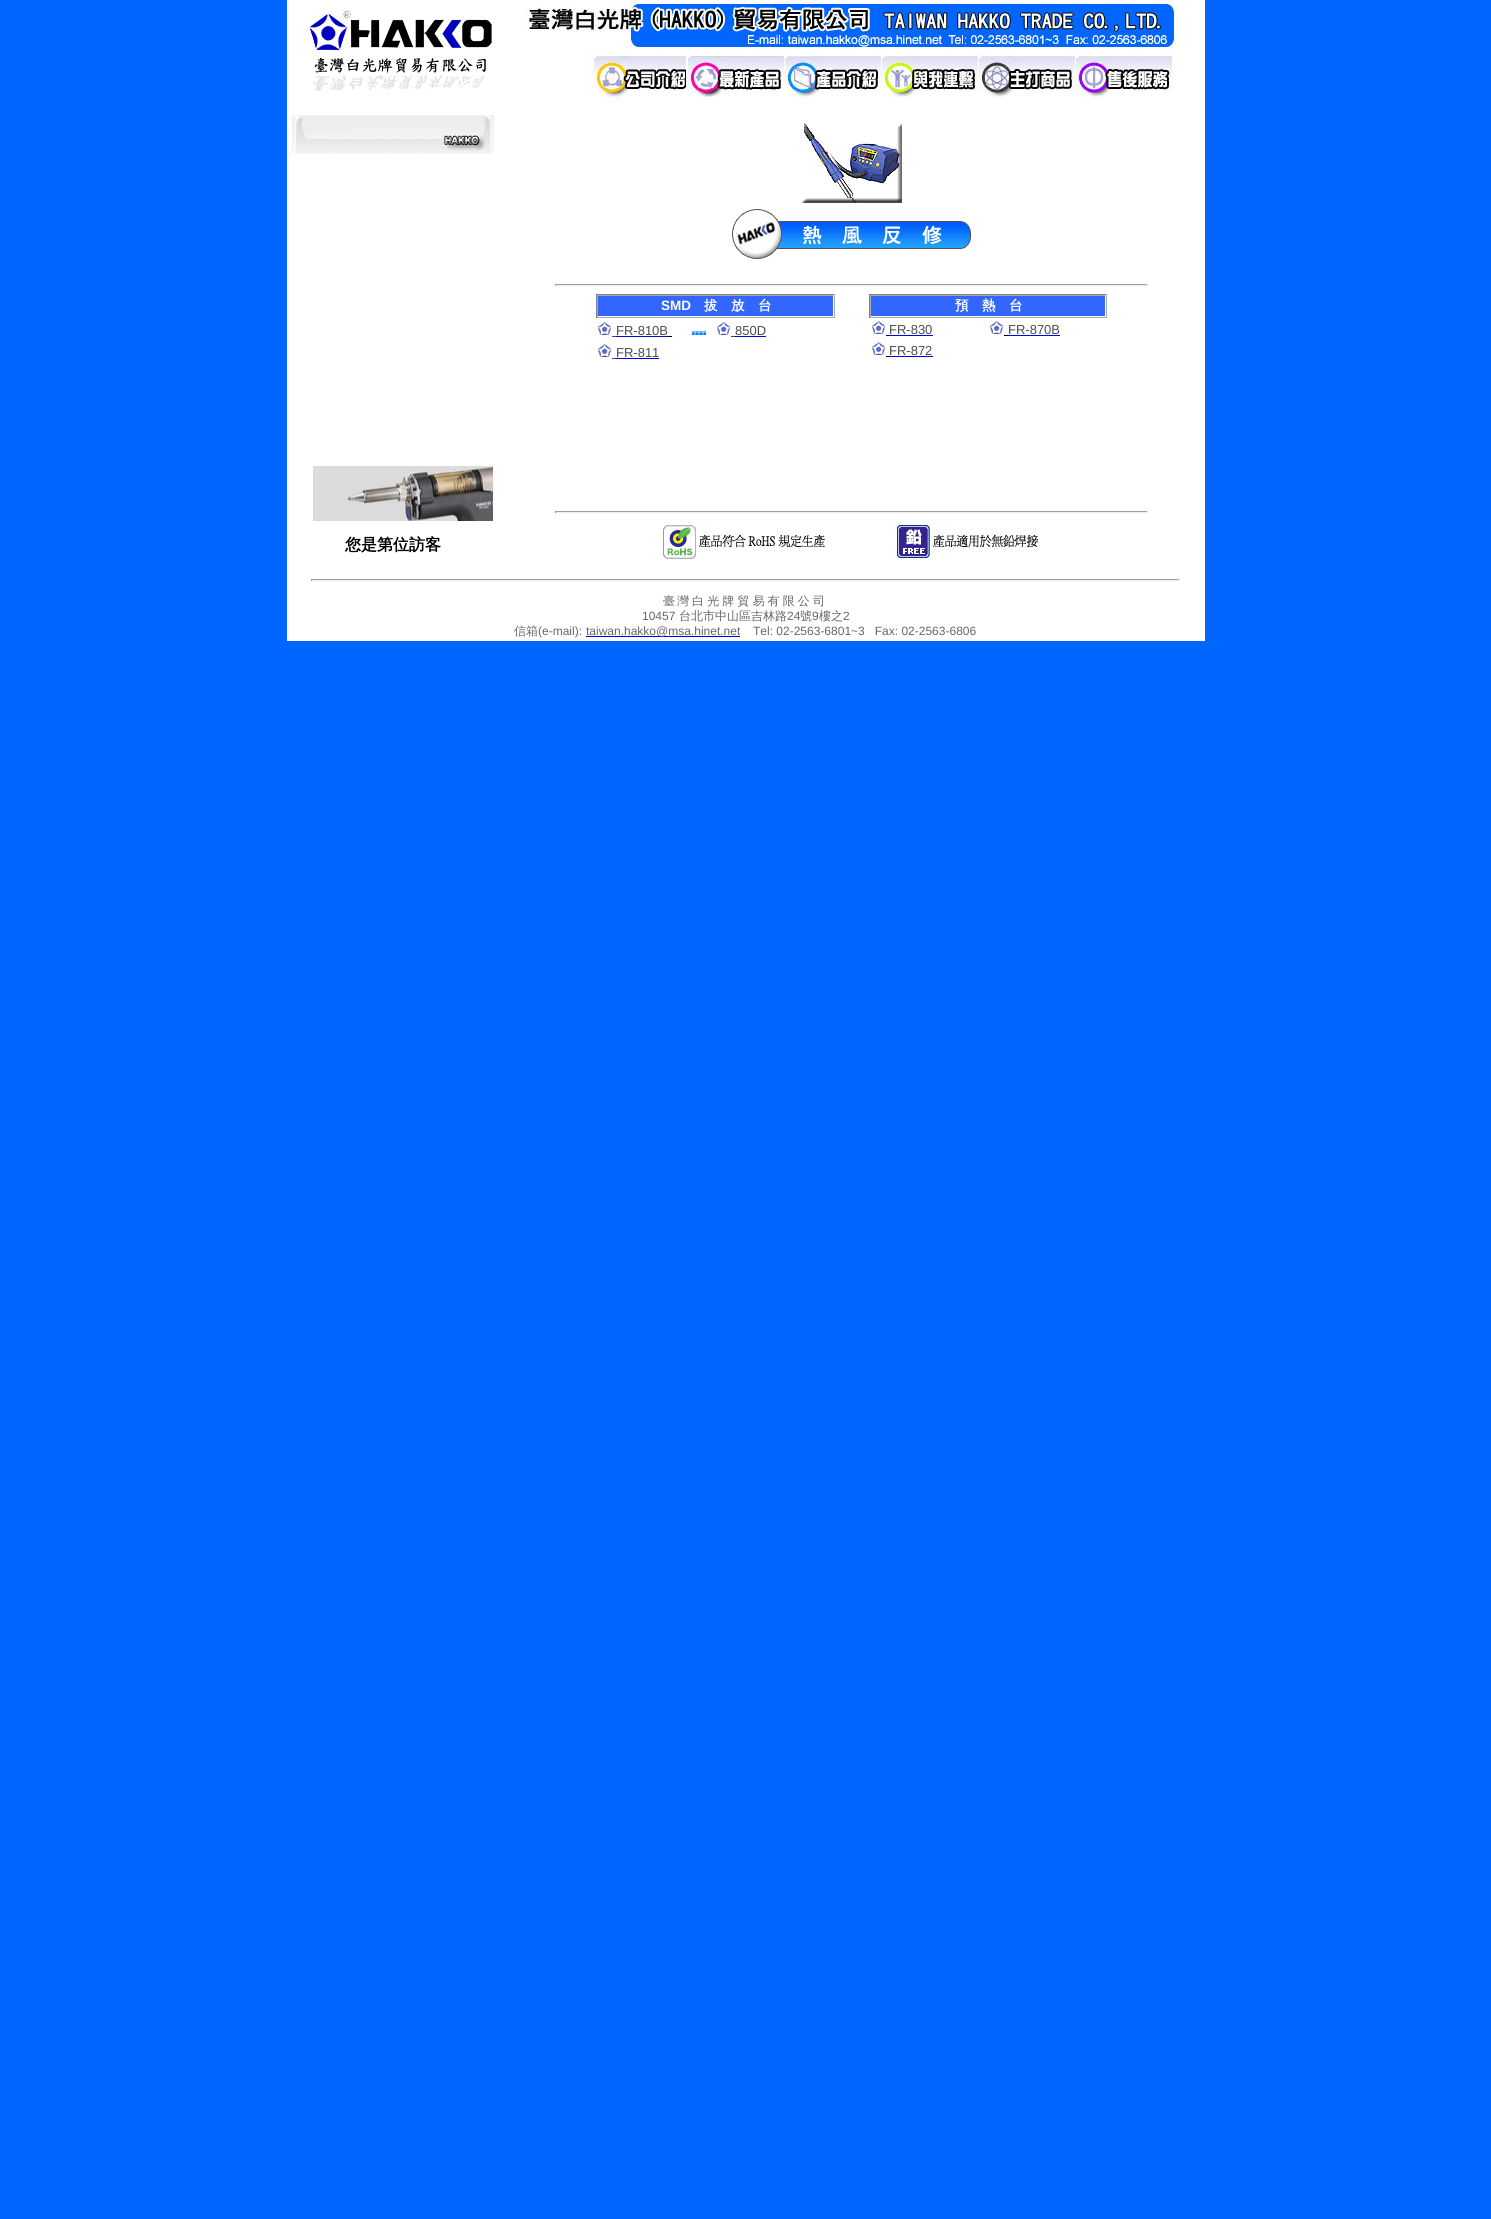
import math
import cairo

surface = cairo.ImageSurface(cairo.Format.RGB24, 1491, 2219)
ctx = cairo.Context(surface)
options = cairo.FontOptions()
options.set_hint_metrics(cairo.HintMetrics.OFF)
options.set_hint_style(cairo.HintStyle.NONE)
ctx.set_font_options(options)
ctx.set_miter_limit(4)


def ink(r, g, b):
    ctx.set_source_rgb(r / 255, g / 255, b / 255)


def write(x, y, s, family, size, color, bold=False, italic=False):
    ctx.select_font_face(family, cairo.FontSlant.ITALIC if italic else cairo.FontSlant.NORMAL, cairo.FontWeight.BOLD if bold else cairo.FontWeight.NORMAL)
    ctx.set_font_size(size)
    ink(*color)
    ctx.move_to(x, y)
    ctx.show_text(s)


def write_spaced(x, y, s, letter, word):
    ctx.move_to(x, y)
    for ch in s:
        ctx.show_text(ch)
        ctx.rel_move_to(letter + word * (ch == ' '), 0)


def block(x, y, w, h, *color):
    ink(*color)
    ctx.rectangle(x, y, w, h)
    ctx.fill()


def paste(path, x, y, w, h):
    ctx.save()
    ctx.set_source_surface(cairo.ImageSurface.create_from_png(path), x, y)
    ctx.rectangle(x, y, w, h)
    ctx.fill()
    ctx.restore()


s1 = dict(family="Liberation Sans", size=13.5, color=(255, 255, 255), bold=True)
s2 = dict(family="WenQuanYi Zen Hei", size=13.5, color=(255, 255, 255), bold=True)
s3 = dict(family="Liberation Sans", size=13, color=(76, 76, 76))
s4 = dict(family="WenQuanYi Zen Hei", size=16, color=(0, 0, 0), bold=True)
s5 = dict(family="WenQuanYi Zen Hei Medium", size=12, color=(102, 102, 102))
s6 = dict(family="Liberation Sans", size=12, color=(102, 102, 102))

ink(0, 102, 255)
ctx.paint()
block(287, 0, 918, 641, 255, 255, 255)
paste("pic1.png", 309, 10, 183, 81)
paste("pic2.png", 525, 0, 652, 48)
paste("pic3.png", 589, 52, 584, 48)
paste("pic4.png", 802, 123, 100, 80)
paste("pic5.png", 732, 209, 239, 50)
block(555, 284, 593, 1, 159, 159, 159)
block(1147, 284, 1, 2, 238, 238, 238)
block(555, 285, 593, 1, 238, 238, 238)
block(555, 284, 1, 2, 159, 159, 159)
block(598, 296, 235, 20, 51, 102, 255)
block(596, 294, 239, 1, 128, 128, 128)
block(834, 294, 1, 24, 170, 170, 170)
block(596, 317, 239, 1, 170, 170, 170)
block(596, 294, 1, 24, 128, 128, 128)
block(597, 295, 237, 1, 170, 170, 170)
block(833, 295, 1, 1, 255, 255, 255)
block(597, 295, 1, 22, 170, 170, 170)
write(661, 310, "SMD", **s1)
write(704, 310, "拔　放　台", **s2)
paste("pic6.png", 598, 322, 13, 13)
write(616, 335, "FR-810B", **s3)
block(612, 336, 4, 1, 76, 76, 76)
block(616, 336, 52, 1, 0, 0, 238)
block(668, 336, 4, 1, 0, 0, 0)
paste("pic7.png", 692, 331, 14, 4)
paste("pic6.png", 717, 322, 13, 13)
write(735, 335, "850D", **s3)
block(731, 336, 4, 1, 76, 76, 76)
block(735, 336, 31, 1, 0, 0, 238)
paste("pic6.png", 598, 344, 13, 13)
write(616, 357, "FR-811", **s3)
block(612, 358, 4, 1, 76, 76, 76)
block(616, 358, 43, 1, 0, 0, 238)
block(871, 296, 234, 20, 51, 102, 255)
block(869, 294, 238, 1, 128, 128, 128)
block(1106, 294, 1, 24, 170, 170, 170)
block(869, 317, 238, 1, 170, 170, 170)
block(869, 294, 1, 24, 128, 128, 128)
block(870, 295, 236, 1, 170, 170, 170)
block(1105, 295, 1, 1, 255, 255, 255)
block(870, 295, 1, 22, 170, 170, 170)
write(955, 310, "預　熱　台", **s2)
paste("pic6.png", 872, 321, 13, 13)
write(889, 334, "FR-830", **s3)
block(886, 335, 3, 1, 0, 0, 0)
block(889, 335, 44, 1, 0, 0, 238)
paste("pic6.png", 990, 321, 13, 13)
write(1008, 334, "FR-870B", **s3)
block(1004, 335, 4, 1, 0, 0, 0)
block(1008, 335, 52, 1, 0, 0, 238)
paste("pic6.png", 872, 342, 13, 13)
write(889, 355, "FR-872", **s3)
block(886, 356, 3, 1, 0, 0, 0)
block(889, 356, 44, 1, 0, 0, 238)
block(555, 511, 593, 1, 159, 159, 159)
block(1147, 511, 1, 2, 238, 238, 238)
block(555, 512, 593, 1, 238, 238, 238)
block(555, 511, 1, 2, 159, 159, 159)
paste("pic8.png", 663, 525, 162, 34)
paste("pic9.png", 897, 525, 142, 33)
paste("pic10.png", 292, 115, 202, 39)
paste("pic11.png", 296, 116, 194, 37)
paste("pic12.png", 313, 466, 180, 55)
write(345, 550, "您是第位訪客", **s4)
block(311, 579, 869, 1, 159, 159, 159)
block(1179, 579, 1, 2, 238, 238, 238)
block(311, 580, 869, 1, 238, 238, 238)
block(311, 579, 1, 2, 159, 159, 159)
write(663, 605, "臺", **s5)
write_spaced(677, 605, "灣 白 光 牌 貿 易 有 限 公 司", 0, -0.5)
write(642, 620, "10457", **s6)
write(679, 620, "台北市中山區吉林路", **s5)
write(787, 620, "24", **s6)
write(800, 620, "號", **s5)
write(812, 620, "9", **s6)
write(819, 620, "樓之", **s5)
write(843, 620, "2", **s6)
write(514, 635, "信箱", **s5)
write(538, 635, "(e-mail):", **s6)
block(586, 636, 154, 1, 0, 0, 238)
write(586, 635, "taiwan.hakko@msa.hinet.net", **s6)
write(753, 635, "Tel: 02-2563-6801~3   Fax: 02-2563-6806", **s6)
surface.write_to_png("screenshot.png")
